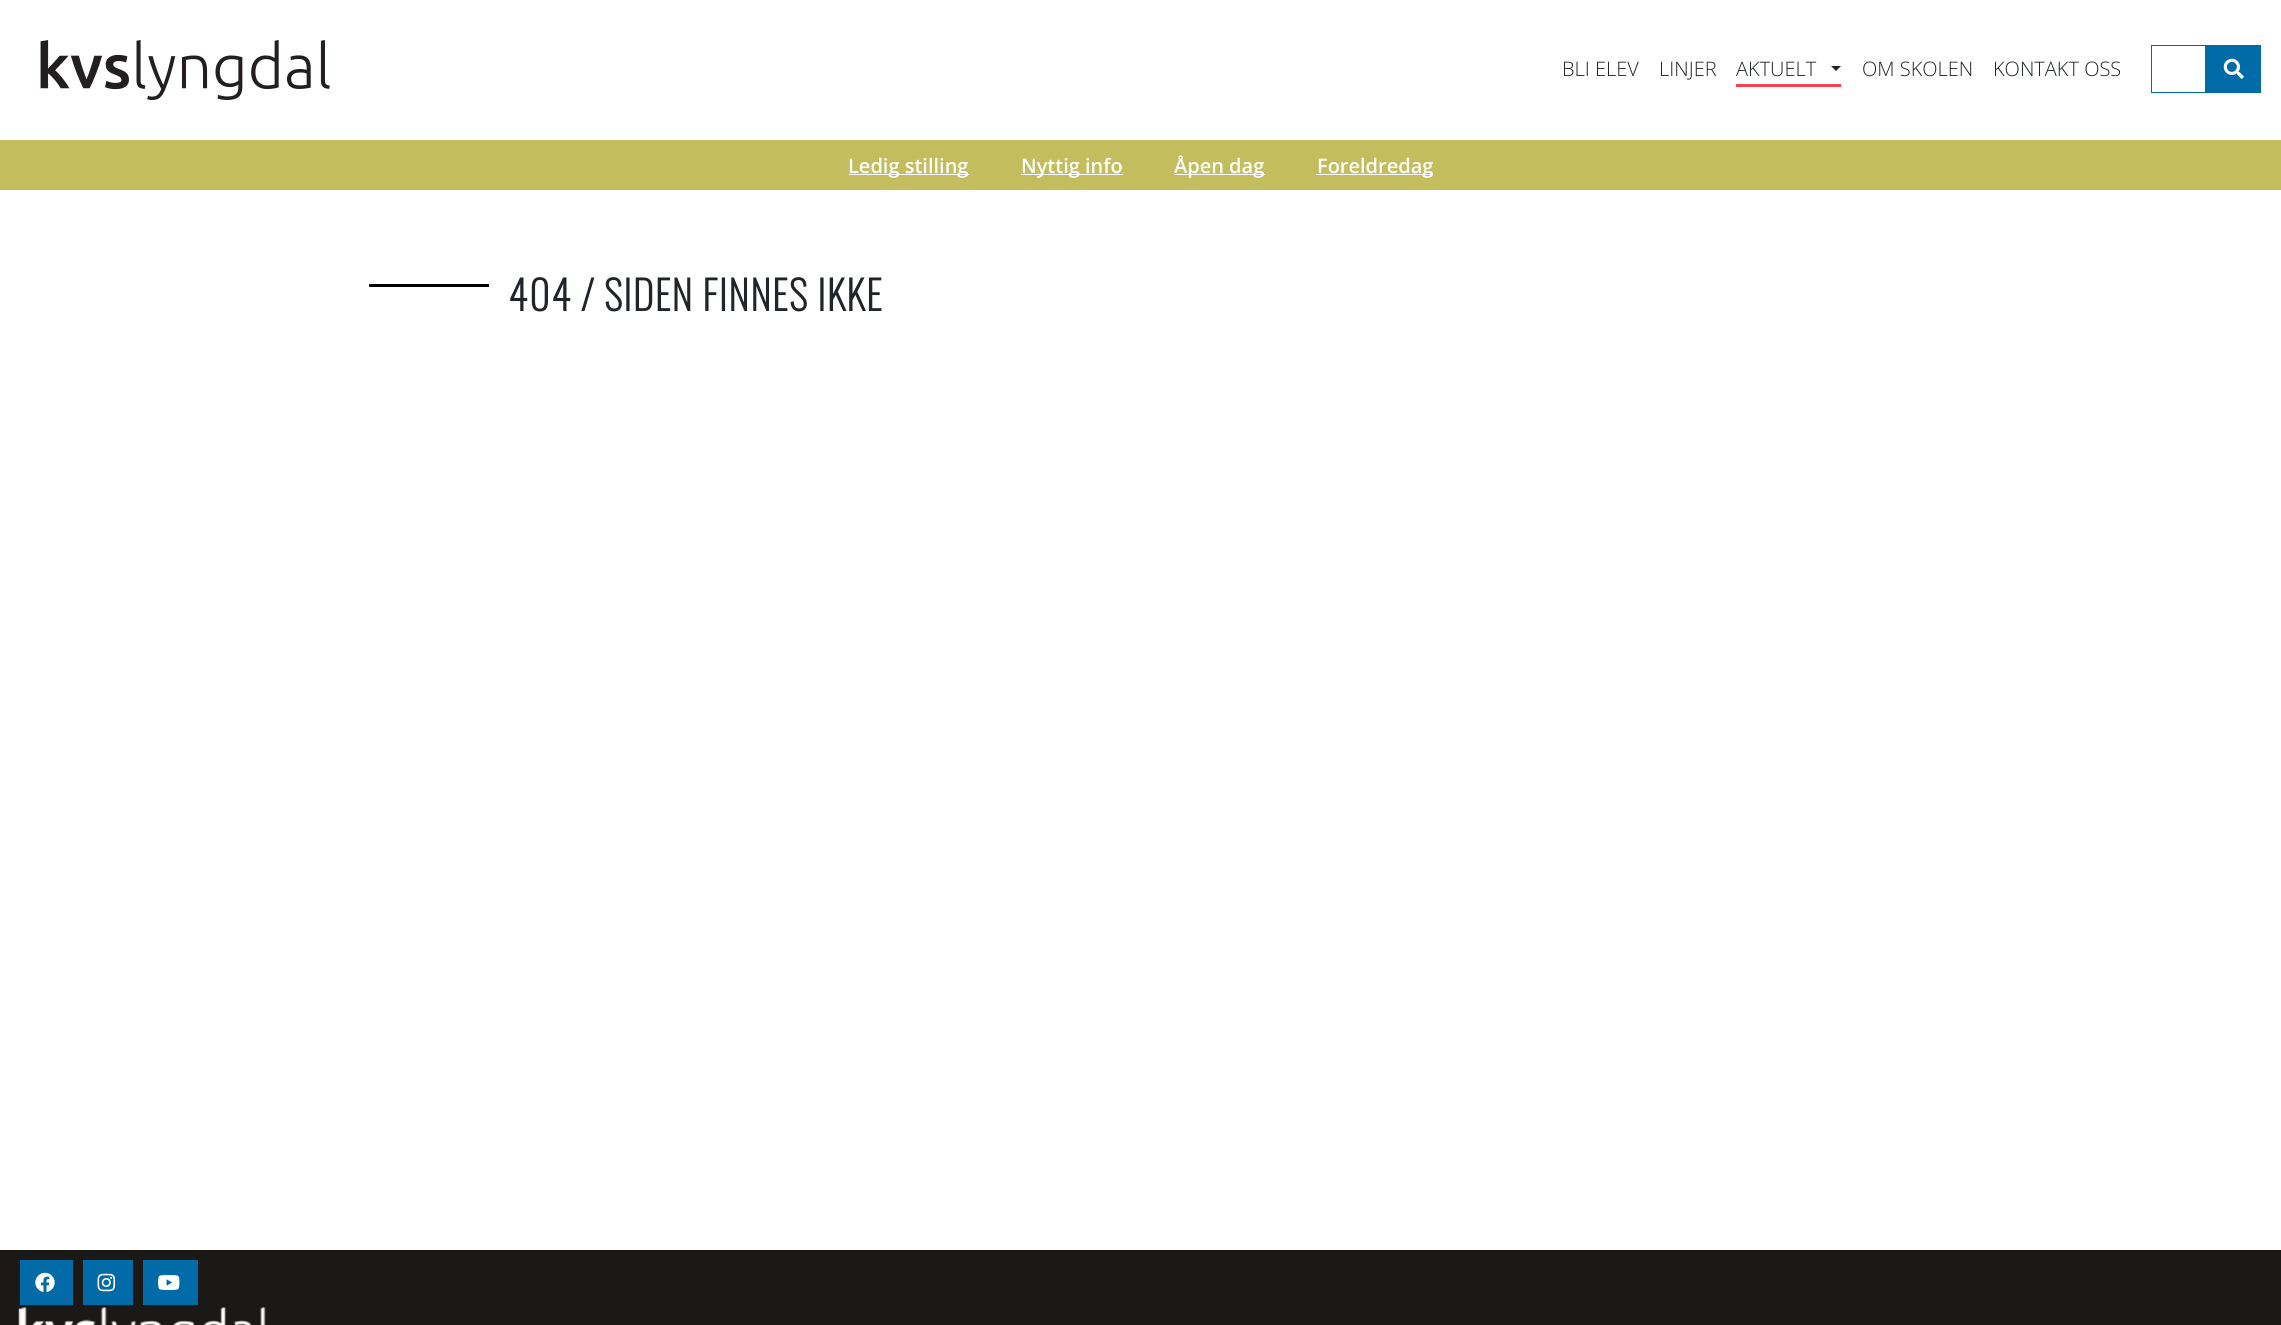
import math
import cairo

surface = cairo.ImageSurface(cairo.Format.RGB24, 2281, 1325)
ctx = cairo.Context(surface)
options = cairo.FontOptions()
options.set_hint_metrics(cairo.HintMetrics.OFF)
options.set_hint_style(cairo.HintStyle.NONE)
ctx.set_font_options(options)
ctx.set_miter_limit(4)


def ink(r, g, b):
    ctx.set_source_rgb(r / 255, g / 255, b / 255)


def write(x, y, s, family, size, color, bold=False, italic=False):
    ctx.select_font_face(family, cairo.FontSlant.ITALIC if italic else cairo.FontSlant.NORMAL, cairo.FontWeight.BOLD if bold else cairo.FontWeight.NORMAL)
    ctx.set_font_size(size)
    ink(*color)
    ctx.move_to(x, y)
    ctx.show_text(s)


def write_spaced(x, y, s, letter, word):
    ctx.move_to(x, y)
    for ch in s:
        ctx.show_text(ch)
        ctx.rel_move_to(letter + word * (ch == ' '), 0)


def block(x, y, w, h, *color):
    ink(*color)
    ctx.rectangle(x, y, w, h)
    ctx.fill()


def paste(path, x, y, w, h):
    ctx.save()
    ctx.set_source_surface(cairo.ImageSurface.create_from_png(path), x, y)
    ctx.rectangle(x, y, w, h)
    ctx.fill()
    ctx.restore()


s1 = dict(family="Open Sans Light", size=20, color=(33, 37, 41))
s2 = dict(family="Open Sans SemiBold", size=20, color=(255, 255, 255))

ink(255, 255, 255)
ctx.paint()
paste("pic1.png", 40, 40, 290, 60)
write(1562, 76, "BLI ELEV", **s1)
write(1659, 76, "LINJER", **s1)
block(1736, 84, 105, 3, 242, 67, 87)
write(1736, 76, "AKTUELT", **s1)
ctx.new_path()
ctx.move_to(1831, 66)
ctx.line_to(1841, 66)
ctx.line_to(1836, 71)
ctx.close_path()
ctx.fill()
write(1862, 76, "OM SKOLEN", **s1)
write(1993, 76, "KONTAKT OSS", **s1)
ctx.rectangle(2151.5, 45.5, 54, 47)
ink(0, 107, 167)
ctx.set_line_width(1)
ctx.stroke()
block(2206, 45, 55, 48, 0, 107, 167)
paste("pic2.png", 2223, 58, 21, 21)
block(0, 140, 2281, 50, 195, 189, 93)
block(849, 174, 120, 1, 255, 255, 255)
write(848, 173, "Ledig stilling", **s2)
block(1021, 174, 102, 1, 255, 255, 255)
write(1021, 173, "Nyttig info", **s2)
block(1175, 174, 90, 1, 255, 255, 255)
write(1174, 173, "Åpen dag", **s2)
block(1316, 174, 117, 1, 255, 255, 255)
write(1317, 173, "Foreldredag", **s2)
block(369, 284, 120, 3, 0, 0, 0)
ctx.select_font_face("Oswald", cairo.FontSlant.NORMAL, cairo.FontWeight.BOLD)
ctx.set_font_size(40)
ink(33, 37, 41)
write_spaced(508, 311, "404 / SIDEN FINNES IKKE", 1.25, 0)
block(0, 1250, 2281, 75, 26, 25, 23)
paste("pic3.png", 18, 1307, 248, 18)
block(20, 1260, 53, 45, 0, 107, 167)
paste("pic4.png", 35, 1272, 20, 20)
block(83, 1260, 50, 45, 0, 107, 167)
paste("pic5.png", 97, 1273, 19, 19)
block(143, 1260, 55, 45, 0, 107, 167)
paste("pic6.png", 158, 1275, 22, 15)
surface.write_to_png("screenshot.png")
